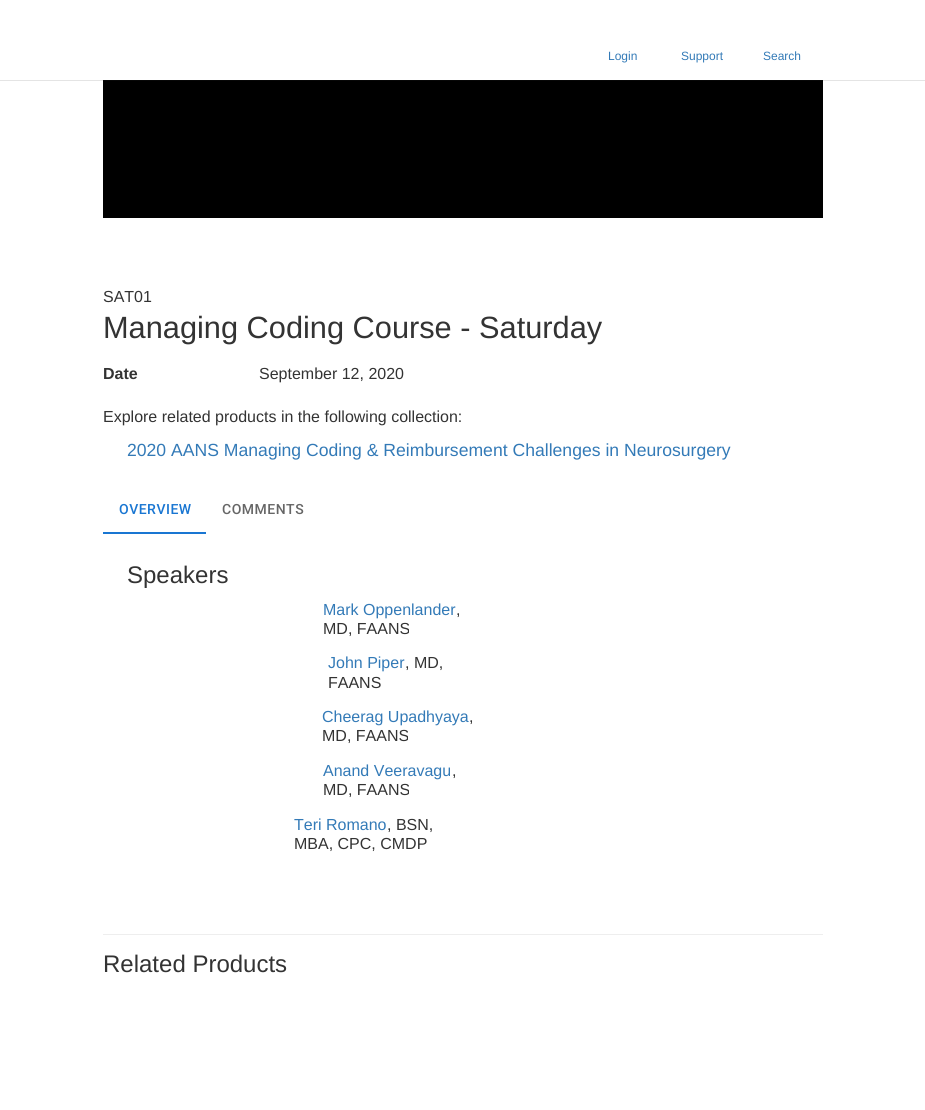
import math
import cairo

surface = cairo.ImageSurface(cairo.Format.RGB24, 925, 1110)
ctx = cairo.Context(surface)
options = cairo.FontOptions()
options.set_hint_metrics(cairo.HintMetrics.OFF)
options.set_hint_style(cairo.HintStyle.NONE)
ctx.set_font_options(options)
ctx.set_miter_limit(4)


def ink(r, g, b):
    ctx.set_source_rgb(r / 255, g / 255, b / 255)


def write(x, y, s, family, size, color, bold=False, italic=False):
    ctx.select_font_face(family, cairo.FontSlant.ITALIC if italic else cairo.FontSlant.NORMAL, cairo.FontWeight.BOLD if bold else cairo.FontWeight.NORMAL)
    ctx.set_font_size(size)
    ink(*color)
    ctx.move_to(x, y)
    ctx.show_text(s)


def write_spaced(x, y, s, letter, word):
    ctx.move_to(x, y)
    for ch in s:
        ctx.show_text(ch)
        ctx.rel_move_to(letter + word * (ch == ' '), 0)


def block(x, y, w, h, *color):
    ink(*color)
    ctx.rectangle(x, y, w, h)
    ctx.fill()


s1 = dict(family="Liberation Sans", size=12, color=(51, 122, 183))
s2 = dict(family="Liberation Sans", size=16, color=(51, 51, 51))
s3 = dict(family="Liberation Sans", size=30.75, color=(51, 51, 51))
s4 = dict(family="Liberation Sans", size=16, color=(51, 51, 51), bold=True)
s5 = dict(family="Liberation Sans", size=17.6, color=(51, 122, 183))
s6 = dict(family="Liberation Sans", size=24, color=(51, 51, 51))
s7 = dict(family="Liberation Sans", size=16, color=(51, 122, 183))

ink(255, 255, 255)
ctx.paint()
block(0, 80, 925, 1, 228, 228, 228)
write(608, 60, "Login", **s1)
write(681, 60, "Support", **s1)
write(763, 60, "Search", **s1)
block(103, 81, 720, 137, 0, 0, 0)
block(103, 80, 720, 1, 7, 7, 7)
write(103, 302, "SAT01", **s2)
write(103, 338, "Managing Coding Course - Saturday", **s3)
write(103, 379, "Date", **s4)
write(259, 379, "September 12, 2020", **s2)
write(103, 422, "Explore related products in the following collection:", **s2)
write(127, 456, "2020 AANS Managing Coding & Reimbursement Challenges in Neurosurgery", **s5)
ctx.select_font_face("Roboto Medium")
ctx.set_font_size(14)
ink(25, 118, 210)
write_spaced(119, 514, "OVERVIEW", 0.5, 0)
ink(102, 102, 102)
write_spaced(222, 514, "COMMENTS", 0.5, 0)
block(103, 532, 103, 2, 25, 118, 210)
write(127, 583, "Speakers", **s6)
write(323, 615, "Mark Oppenlander", **s7)
write(456, 615, ",", **s2)
write(323, 634, "MD, FAANS", **s2)
write(328, 668, "John Piper", **s7)
write(405, 668, ", MD,", **s2)
write(328, 688, "FAANS", **s2)
write(322, 722, "Cheerag Upadhyaya", **s7)
write(469, 722, ",", **s2)
write(322, 741, "MD, FAANS", **s2)
write(323, 776, "Anand Veeravagu", **s7)
write(452, 776, ",", **s2)
write(323, 795, "MD, FAANS", **s2)
write(294, 830, "Teri Romano", **s7)
write(387, 830, ", BSN,", **s2)
write(294, 849, "MBA, CPC, CMDP", **s2)
block(103, 934, 720, 1, 238, 238, 238)
write(103, 972, "Related Products", **s6)
surface.write_to_png("screenshot.png")
